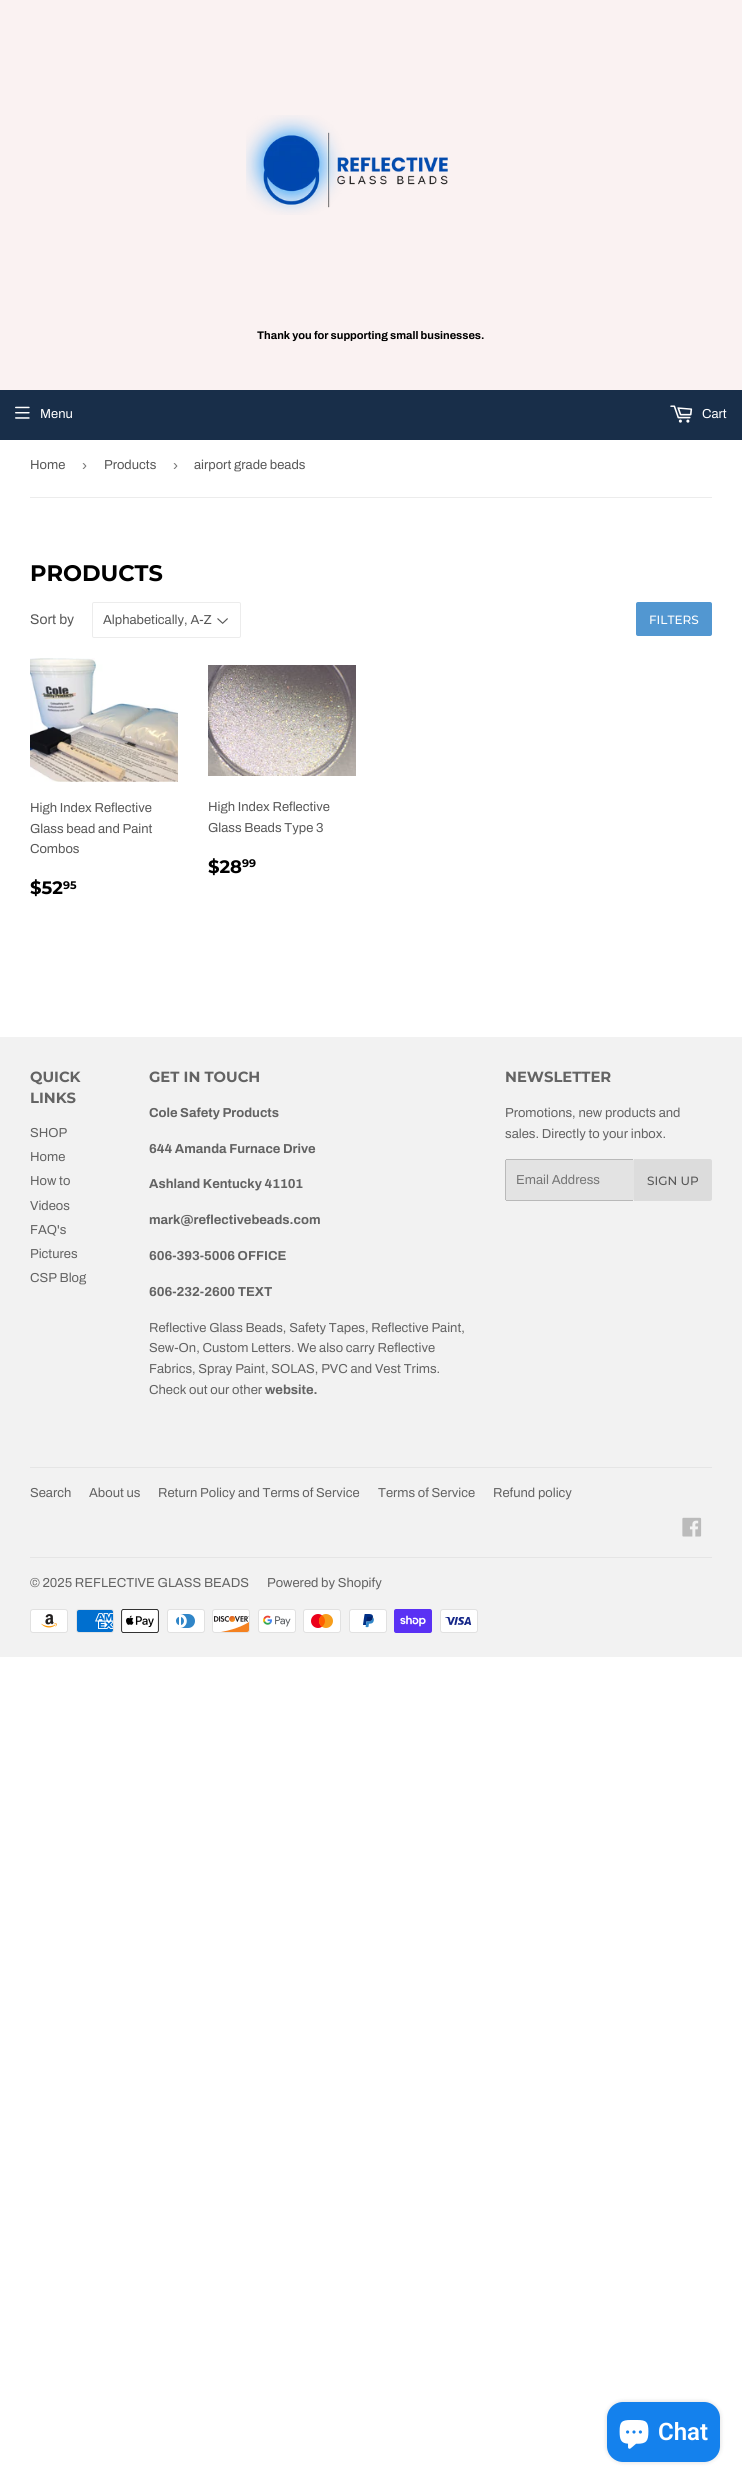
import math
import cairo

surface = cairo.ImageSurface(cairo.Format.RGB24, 742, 2483)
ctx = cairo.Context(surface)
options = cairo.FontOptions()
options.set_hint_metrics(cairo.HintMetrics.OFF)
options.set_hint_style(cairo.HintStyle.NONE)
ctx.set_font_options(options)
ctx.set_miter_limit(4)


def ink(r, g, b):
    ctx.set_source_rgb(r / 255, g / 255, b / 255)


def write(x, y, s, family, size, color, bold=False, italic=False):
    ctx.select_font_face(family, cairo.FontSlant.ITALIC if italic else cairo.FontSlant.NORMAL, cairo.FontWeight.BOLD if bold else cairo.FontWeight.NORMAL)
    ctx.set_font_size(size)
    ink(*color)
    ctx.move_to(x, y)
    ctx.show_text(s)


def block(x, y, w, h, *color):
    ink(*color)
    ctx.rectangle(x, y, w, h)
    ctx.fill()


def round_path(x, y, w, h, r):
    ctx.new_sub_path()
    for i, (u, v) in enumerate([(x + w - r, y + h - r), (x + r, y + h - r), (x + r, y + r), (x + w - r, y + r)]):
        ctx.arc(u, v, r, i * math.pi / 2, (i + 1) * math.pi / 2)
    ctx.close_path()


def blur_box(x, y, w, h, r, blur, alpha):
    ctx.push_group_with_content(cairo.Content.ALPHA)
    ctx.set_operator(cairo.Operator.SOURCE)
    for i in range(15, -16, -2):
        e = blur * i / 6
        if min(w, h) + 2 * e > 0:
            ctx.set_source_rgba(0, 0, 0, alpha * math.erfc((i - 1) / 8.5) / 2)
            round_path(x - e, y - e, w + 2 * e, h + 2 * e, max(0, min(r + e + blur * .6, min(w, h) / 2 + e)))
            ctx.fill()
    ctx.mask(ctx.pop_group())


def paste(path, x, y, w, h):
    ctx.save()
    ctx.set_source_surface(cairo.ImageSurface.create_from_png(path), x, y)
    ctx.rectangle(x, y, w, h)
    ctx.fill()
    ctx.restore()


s1 = dict(family="Archivo", size=11.05, color=(0, 0, 0), bold=True)
s2 = dict(family="Archivo", size=13, color=(255, 255, 255))
s3 = dict(family="Archivo", size=13, color=(88, 88, 88))
s4 = dict(family="Liberation Sans", size=15, color=(118, 118, 118))
s5 = dict(family="Montserrat", size=22.5, color=(0, 0, 0), bold=True)
s6 = dict(family="Archivo", size=14, color=(88, 88, 88))
s7 = dict(family="Montserrat Medium", size=12, color=(255, 255, 255))
s8 = dict(family="Montserrat", size=18, color=(0, 0, 0), bold=True)
s9 = dict(family="Montserrat", size=11, color=(0, 0, 0), bold=True)
s10 = dict(family="Montserrat", size=14.75, color=(99, 99, 99), bold=True)
s11 = dict(family="Archivo", size=13, color=(99, 99, 99))
s12 = dict(family="Archivo", size=13, color=(99, 99, 99), bold=True)
s13 = dict(family="Archivo", size=13, color=(118, 118, 118))
s14 = dict(family="Montserrat Medium", size=12, color=(88, 88, 88))
s15 = dict(family="Roboto SemiBold", size=24, color=(255, 255, 255))

ink(255, 255, 255)
ctx.paint()
block(0, 0, 742, 390, 250, 242, 242)
paste("pic1.png", 246, 115, 202, 100)
write(257, 339, "Thank you for supporting small businesses.", **s1)
block(0, 390, 742, 50, 24, 46, 73)
paste("pic2.png", 15, 406, 15, 13)
write(40, 418, "Menu", **s2)
paste("pic3.png", 670, 405, 23, 18)
write(702, 418, "Cart", **s2)
block(30, 497, 682, 1, 236, 236, 236)
write(30, 469, "Home", **s3)
write(82, 470, "›", **s4)
write(104, 469, "Products", **s3)
write(173, 470, "›", **s4)
write(194, 469, "airport grade beads", **s3)
write(30, 581, "PRODUCTS", **s5)
write(30, 624, "Sort by", **s6)
paste("pic4.png", 217, 618, 11, 6)
round_path(92.5, 602.5, 148, 35, 1.5)
ink(236, 236, 236)
ctx.set_line_width(1)
ctx.stroke()
write(103, 624, "Alphabetically, A-Z", **s3)
ink(82, 151, 209)
round_path(636, 602, 76, 34, 2)
ctx.fill()
write(649, 624, "FILTERS", **s7)
paste("pic5.png", 30, 658, 148, 124)
write(30, 812, "High Index Reflective", **s3)
write(30, 833, "Glass bead and Paint", **s3)
write(30, 853, "Combos", **s3)
write(30, 894, "$52", **s8)
write(63, 889, "95", **s9)
paste("pic6.png", 208, 665, 148, 111)
write(208, 811, "High Index Reflective", **s3)
write(208, 832, "Glass Beads Type 3", **s3)
write(208, 873, "$28", **s8)
write(242, 867, "99", **s9)
block(0, 1037, 742, 620, 242, 242, 242)
write(30, 1082, "QUICK", **s10)
write(30, 1103, "LINKS", **s10)
write(30, 1137, "SHOP", **s11)
write(30, 1161, "Home", **s11)
write(30, 1185, "How to", **s11)
write(30, 1210, "Videos", **s11)
write(30, 1234, "FAQ's", **s11)
write(30, 1258, "Pictures", **s11)
write(30, 1282, "CSP Blog", **s11)
write(149, 1082, "GET IN TOUCH", **s10)
write(149, 1117, "Cole Safety Products", **s12)
write(149, 1153, "644 Amanda Furnace Drive", **s12)
write(149, 1188, "Ashland Kentucky 41101", **s12)
write(149, 1224, "mark@reflectivebeads.com", **s12)
write(149, 1260, "606-393-5006 OFFICE", **s12)
write(149, 1296, "606-232-2600 TEXT", **s12)
write(149, 1332, "Reflective Glass Beads, Safety Tapes, Reflective Paint,", **s11)
write(149, 1352, "Sew-On, Custom Letters. We also carry Reflective", **s11)
write(149, 1373, "Fabrics, Spray Paint, SOLAS, PVC and Vest Trims.", **s11)
write(149, 1394, "Check out our other", **s11)
write(265, 1394, "website.", **s12)
write(505, 1082, "NEWSLETTER", **s10)
write(505, 1117, "Promotions, new products and", **s11)
write(505, 1138, "sales. Directly to your inbox.", **s11)
ink(227, 227, 227)
round_path(505, 1159, 129, 42, 2)
ctx.fill()
block(506, 1159, 127, 1, 185, 185, 185)
block(506, 1200, 127, 1, 185, 185, 185)
block(505, 1160, 1, 40, 185, 185, 185)
write(516, 1184, "Email Address", **s13)
ink(220, 220, 220)
ctx.new_path()
ctx.move_to(634, 1159)
ctx.line_to(710, 1159)
ctx.curve_to(711, 1159, 712, 1160, 712, 1161)
ctx.line_to(712, 1199)
ctx.curve_to(712, 1200, 711, 1201, 710, 1201)
ctx.line_to(634, 1201)
ctx.close_path()
ctx.fill()
write(647, 1185, "SIGN UP", **s14)
block(30, 1467, 682, 1, 229, 229, 229)
write(30, 1497, "Search", **s11)
write(89, 1497, "About us", **s11)
write(158, 1497, "Return Policy and Terms of Service", **s11)
write(378, 1497, "Terms of Service", **s11)
write(493, 1497, "Refund policy", **s11)
paste("pic7.png", 682, 1517, 20, 20)
block(30, 1557, 682, 1, 229, 229, 229)
write(30, 1587, "© 2025 REFLECTIVE GLASS BEADS", **s11)
write(267, 1587, "Powered by Shopify", **s11)
paste("pic8.png", 30, 1609, 38, 24)
paste("pic9.png", 76, 1609, 38, 24)
paste("pic10.png", 121, 1609, 38, 24)
paste("pic11.png", 167, 1609, 38, 24)
paste("pic12.png", 212, 1609, 38, 24)
paste("pic13.png", 258, 1609, 38, 24)
paste("pic14.png", 303, 1609, 38, 24)
paste("pic15.png", 349, 1609, 38, 24)
paste("pic16.png", 394, 1609, 38, 24)
paste("pic17.png", 440, 1609, 38, 24)
ink(0, 0, 0)
blur_box(607, 2402, 113, 60, 16, 2.5, 0.15)
ink(20, 129, 237)
round_path(607, 2402, 113, 60, 16)
ctx.fill()
paste("pic18.png", 619, 2420, 30, 29)
write(658, 2440, "Chat", **s15)
surface.write_to_png("screenshot.png")
